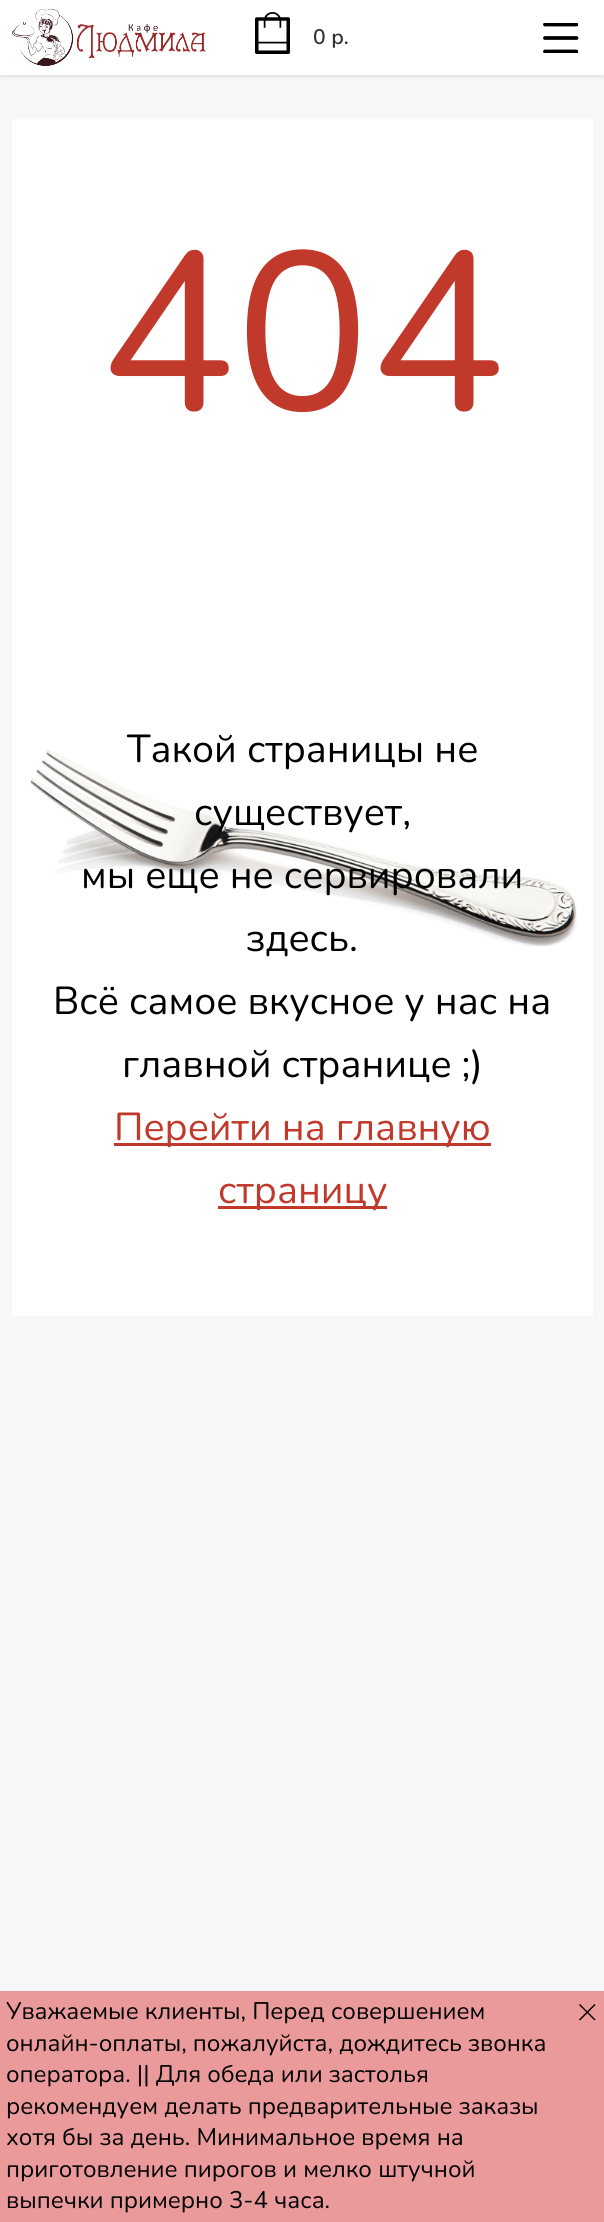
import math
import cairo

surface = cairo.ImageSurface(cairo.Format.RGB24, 604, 2222)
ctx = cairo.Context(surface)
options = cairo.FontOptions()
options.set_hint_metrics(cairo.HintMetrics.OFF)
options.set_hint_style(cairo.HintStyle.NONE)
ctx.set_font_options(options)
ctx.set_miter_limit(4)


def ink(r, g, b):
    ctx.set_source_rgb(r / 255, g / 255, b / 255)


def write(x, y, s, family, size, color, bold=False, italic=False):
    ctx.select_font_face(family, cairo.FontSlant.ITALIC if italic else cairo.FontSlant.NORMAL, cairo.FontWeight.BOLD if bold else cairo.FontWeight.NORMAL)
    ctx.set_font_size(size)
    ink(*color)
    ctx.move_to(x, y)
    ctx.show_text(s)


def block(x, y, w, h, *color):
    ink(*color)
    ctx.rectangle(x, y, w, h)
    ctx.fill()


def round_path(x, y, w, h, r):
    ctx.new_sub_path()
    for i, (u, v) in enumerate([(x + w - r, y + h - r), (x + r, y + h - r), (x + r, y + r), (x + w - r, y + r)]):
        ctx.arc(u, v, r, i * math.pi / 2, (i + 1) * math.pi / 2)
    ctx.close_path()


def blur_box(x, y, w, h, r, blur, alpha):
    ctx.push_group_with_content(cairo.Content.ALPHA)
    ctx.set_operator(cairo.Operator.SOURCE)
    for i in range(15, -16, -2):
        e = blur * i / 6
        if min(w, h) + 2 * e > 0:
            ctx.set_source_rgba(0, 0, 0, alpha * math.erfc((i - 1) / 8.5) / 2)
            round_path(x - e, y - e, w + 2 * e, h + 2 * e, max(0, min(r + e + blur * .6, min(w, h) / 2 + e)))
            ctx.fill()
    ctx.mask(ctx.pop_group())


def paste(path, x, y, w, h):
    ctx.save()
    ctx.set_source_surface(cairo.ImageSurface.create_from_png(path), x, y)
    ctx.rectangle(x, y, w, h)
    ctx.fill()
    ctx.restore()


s1 = dict(family="Nunito SemiBold", size=21, color=(51, 51, 51))
s2 = dict(family="Nunito", size=225, color=(192, 57, 43))
s3 = dict(family="Nunito", size=39, color=(0, 0, 0))
s4 = dict(family="Nunito", size=39, color=(192, 57, 43))
s5 = dict(family="Nunito", size=24, color=(0, 0, 0))

ink(245, 247, 249)
ctx.paint()
ink(0, 0, 0)
blur_box(0, 0, 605, 75, 0, 3, 0.16)
block(0, 0, 604, 75, 255, 255, 255)
paste("pic1.png", 12, 8, 194, 59)
paste("pic2.png", 255, 12, 35, 42)
write(313, 44, "0 р.", **s1)
ctx.new_path()
ctx.move_to(545, 38)
ctx.line_to(576.5, 38)
ink(0, 0, 0)
ctx.set_line_width(3.8)
ctx.set_line_cap(cairo.LineCap.ROUND)
ctx.set_line_join(cairo.LineJoin.ROUND)
ctx.stroke()
ctx.save()
ctx.rectangle(543, 23, 35, 30)
ctx.clip()
ctx.new_path()
ctx.move_to(545, 24.5)
ctx.line_to(576.5, 24.5)
ctx.move_to(545, 51.5)
ctx.line_to(576.5, 51.5)
ctx.stroke()
ctx.restore()
block(12, 119, 581, 1197, 255, 255, 255)
write(100, 410, "404", **s2)
paste("pic3.png", 30, 750, 548, 197)
write(127, 762, "Такой страницы не", **s3)
write(194, 825, "существует,", **s3)
write(81, 888, "мы еще не сервировали", **s3)
write(246, 951, "здесь.", **s3)
write(53, 1014, "Всё самое вкусное у нас на", **s3)
write(122, 1077, "главной странице ;)", **s3)
block(114, 1143, 377, 3, 192, 57, 43)
write(114, 1140, "Перейти на главную", **s4)
block(218, 1206, 169, 3, 192, 57, 43)
write(218, 1203, "страницу", **s4)
block(0, 1991, 604, 231, 234, 154, 155)
write(6, 2019, "Уважаемые клиенты, Перед совершением", **s5)
write(6, 2051, "онлайн-оплаты, пожалуйста, дождитесь звонка", **s5)
write(6, 2082, "оператора. || Для обеда или застолья", **s5)
write(6, 2114, "рекомендуем делать предварительные заказы", **s5)
write(6, 2145, "хотя бы за день. Минимальное время на", **s5)
write(6, 2177, "приготовление пирогов и мелко штучной", **s5)
write(6, 2208, "выпечки примерно 3-4 часа.", **s5)
ink(1, 1, 1)
ctx.new_path()
ctx.move_to(580, 2004)
ctx.line_to(595.5, 2019.5)
ctx.line_to(594.5, 2020.5)
ctx.line_to(579, 2005)
ctx.close_path()
ctx.fill()
ctx.new_path()
ctx.move_to(579, 2019.5)
ctx.line_to(594.5, 2004)
ctx.line_to(595.5, 2005)
ctx.line_to(580, 2020.5)
ctx.close_path()
ctx.fill()
surface.write_to_png("screenshot.png")
